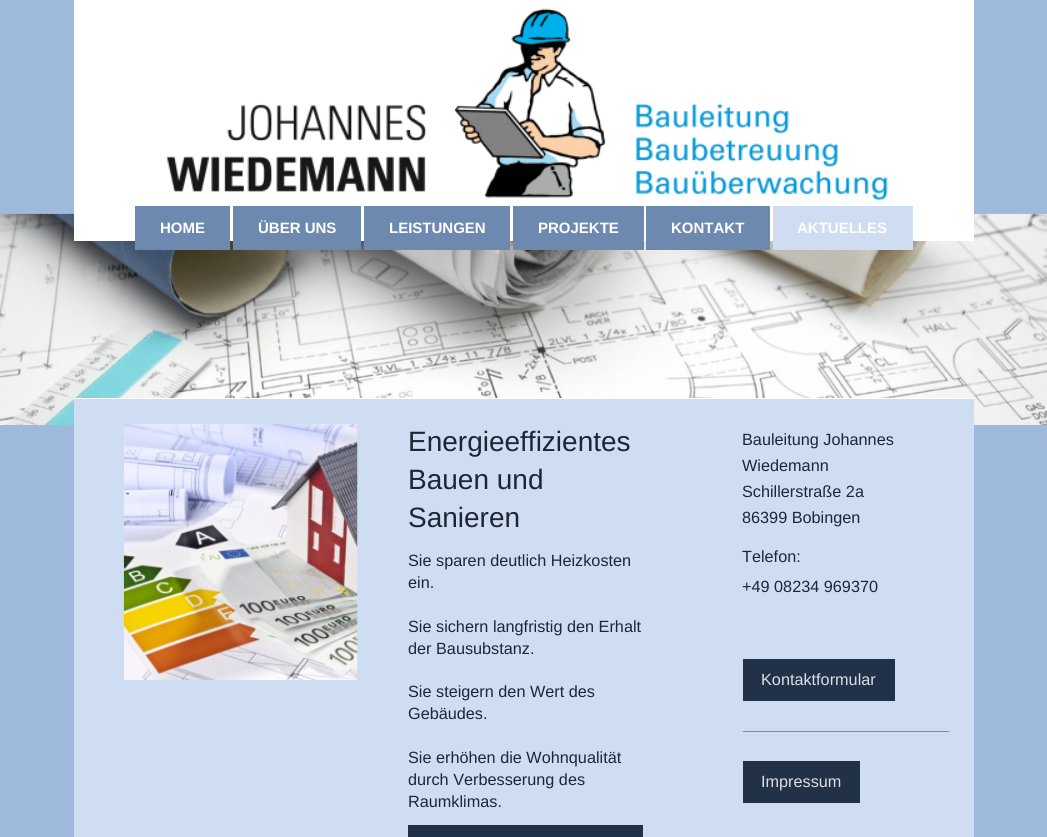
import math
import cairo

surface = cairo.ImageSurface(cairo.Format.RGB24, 1047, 837)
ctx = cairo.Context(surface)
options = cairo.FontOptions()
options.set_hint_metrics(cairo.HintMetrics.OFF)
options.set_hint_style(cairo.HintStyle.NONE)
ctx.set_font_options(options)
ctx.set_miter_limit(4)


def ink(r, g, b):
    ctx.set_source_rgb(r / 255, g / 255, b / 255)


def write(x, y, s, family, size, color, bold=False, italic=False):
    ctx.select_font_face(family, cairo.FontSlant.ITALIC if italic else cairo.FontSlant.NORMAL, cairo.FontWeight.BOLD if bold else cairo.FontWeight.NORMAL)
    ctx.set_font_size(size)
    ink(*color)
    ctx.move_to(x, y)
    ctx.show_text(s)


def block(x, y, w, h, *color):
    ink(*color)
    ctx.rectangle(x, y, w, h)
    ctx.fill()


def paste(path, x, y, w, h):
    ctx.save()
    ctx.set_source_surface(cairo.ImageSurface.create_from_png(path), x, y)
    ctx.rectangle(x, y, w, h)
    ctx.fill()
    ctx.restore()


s1 = dict(family="Liberation Sans", size=15, color=(255, 255, 255), bold=True)
s2 = dict(family="Liberation Sans", size=28, color=(29, 38, 53))
s3 = dict(family="Liberation Sans", size=16.25, color=(29, 38, 53))
s4 = dict(family="Liberation Sans", size=16.25, color=(219, 223, 230))

ink(158, 185, 220)
ctx.paint()
paste("pic1.png", 0, 213, 1047, 212)
block(74, 0, 900, 241, 255, 255, 255)
paste("pic2.png", 166, 8, 722, 193)
block(135, 206, 95, 44, 110, 137, 175)
write(160, 233, "HOME", **s1)
block(233, 206, 128, 44, 110, 137, 175)
write(258, 233, "ÜBER UNS", **s1)
block(364, 206, 146, 44, 110, 137, 175)
write(389, 233, "LEISTUNGEN", **s1)
block(513, 206, 131, 44, 110, 137, 175)
write(538, 233, "PROJEKTE", **s1)
block(646, 206, 124, 44, 110, 137, 175)
write(671, 233, "KONTAKT", **s1)
block(773, 206, 140, 44, 207, 221, 242)
write(797, 233, "AKTUELLES", **s1)
block(74, 398, 900, 1, 255, 255, 255)
block(74, 399, 900, 438, 207, 221, 242)
paste("pic3.png", 123, 424, 235, 256)
write(408, 451, "Energieeffizientes", **s2)
write(408, 489, "Bauen und", **s2)
write(408, 527, "Sanieren", **s2)
write(408, 566, "Sie sparen deutlich Heizkosten", **s3)
write(408, 588, "ein.", **s3)
write(408, 632, "Sie sichern langfristig den Erhalt", **s3)
write(408, 654, "der Bausubstanz.", **s3)
write(408, 697, "Sie steigern den Wert des", **s3)
write(408, 719, "Gebäudes.", **s3)
write(408, 763, "Sie erhöhen die Wohnqualität", **s3)
write(408, 785, "durch Verbesserung des", **s3)
write(408, 807, "Raumklimas.", **s3)
block(408, 825, 235, 12, 33, 49, 71)
write(742, 445, "Bauleitung Johannes", **s3)
write(742, 471, "Wiedemann", **s3)
write(742, 497, "Schillerstraße 2a", **s3)
write(742, 523, "86399 Bobingen", **s3)
write(742, 562, "Telefon:", **s3)
write(742, 592, "+49 08234 969370", **s3)
block(743, 659, 152, 42, 33, 49, 71)
write(761, 685, "Kontaktformular", **s4)
block(743, 731, 206, 1, 99, 144, 213)
block(743, 761, 117, 42, 33, 49, 71)
write(761, 787, "Impressum", **s4)
surface.write_to_png("screenshot.png")
